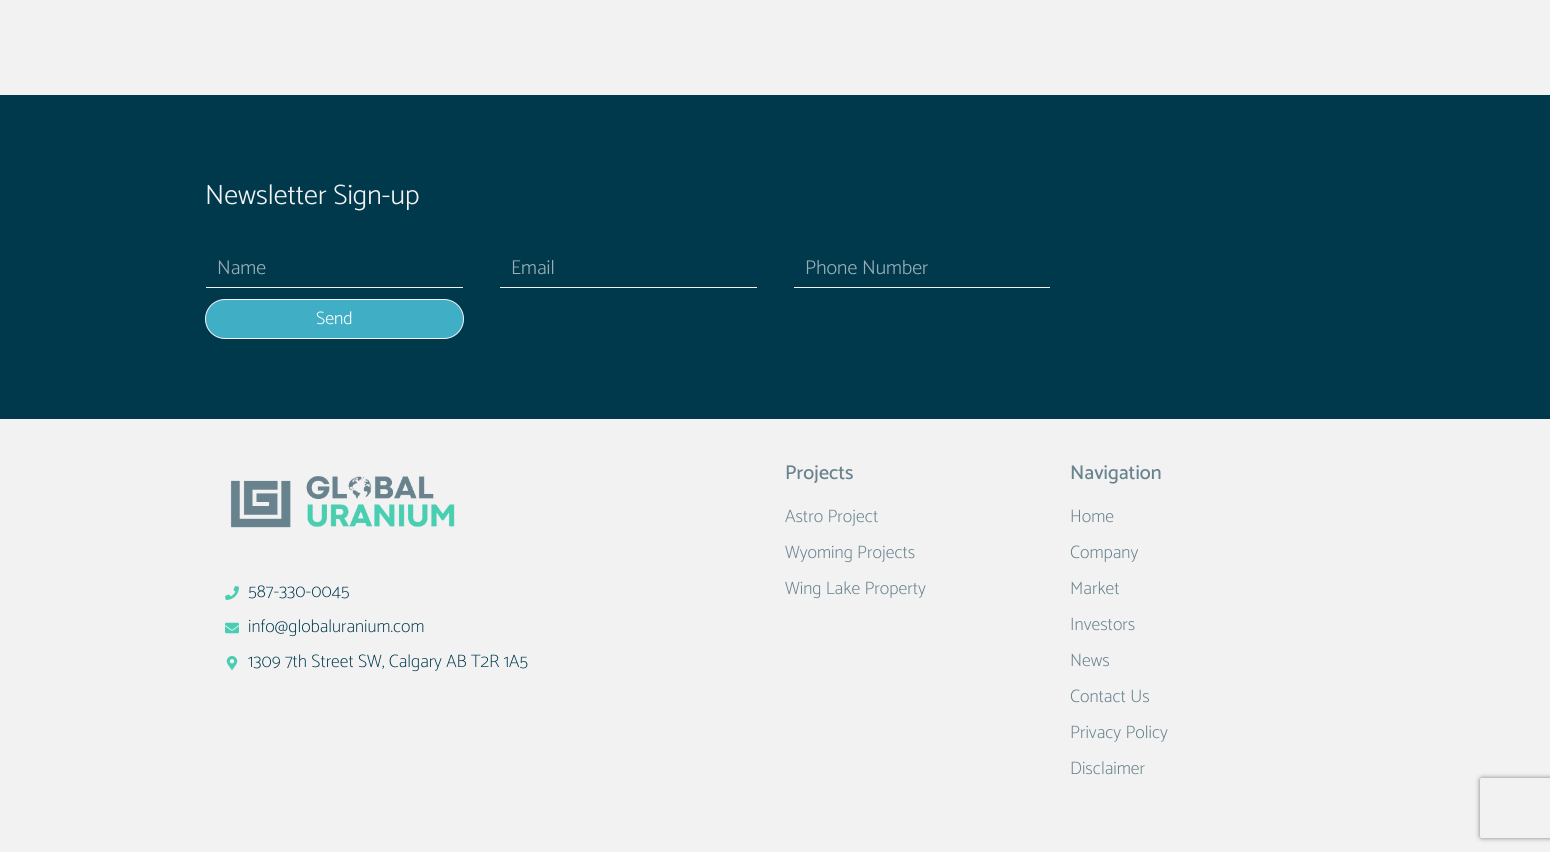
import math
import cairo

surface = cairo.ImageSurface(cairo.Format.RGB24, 1550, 852)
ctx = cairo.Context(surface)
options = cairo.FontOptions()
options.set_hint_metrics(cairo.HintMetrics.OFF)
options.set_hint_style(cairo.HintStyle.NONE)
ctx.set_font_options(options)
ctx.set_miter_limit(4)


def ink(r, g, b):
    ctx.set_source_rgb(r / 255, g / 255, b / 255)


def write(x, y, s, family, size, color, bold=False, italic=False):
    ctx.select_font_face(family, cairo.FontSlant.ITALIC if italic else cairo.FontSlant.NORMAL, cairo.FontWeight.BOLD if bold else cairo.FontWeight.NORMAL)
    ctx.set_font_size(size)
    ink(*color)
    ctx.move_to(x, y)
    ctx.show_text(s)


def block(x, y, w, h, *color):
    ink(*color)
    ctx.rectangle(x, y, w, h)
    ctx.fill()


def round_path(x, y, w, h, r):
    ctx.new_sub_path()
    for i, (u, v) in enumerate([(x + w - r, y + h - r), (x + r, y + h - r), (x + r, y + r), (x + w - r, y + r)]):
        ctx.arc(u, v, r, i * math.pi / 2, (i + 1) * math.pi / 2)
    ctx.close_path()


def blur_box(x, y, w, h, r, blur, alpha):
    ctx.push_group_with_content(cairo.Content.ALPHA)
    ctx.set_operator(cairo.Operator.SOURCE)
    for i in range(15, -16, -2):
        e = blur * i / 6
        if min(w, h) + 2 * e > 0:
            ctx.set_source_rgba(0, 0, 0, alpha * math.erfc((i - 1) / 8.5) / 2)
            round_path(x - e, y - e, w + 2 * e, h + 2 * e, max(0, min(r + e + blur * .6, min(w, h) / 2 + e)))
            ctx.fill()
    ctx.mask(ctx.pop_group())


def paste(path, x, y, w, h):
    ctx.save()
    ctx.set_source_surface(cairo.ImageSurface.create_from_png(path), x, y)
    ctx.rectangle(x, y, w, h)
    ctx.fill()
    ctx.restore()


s1 = dict(family="Catamaran Light", size=28, color=(242, 242, 243))
s2 = dict(family="Catamaran Light", size=20, color=(153, 175, 183))
s3 = dict(family="Catamaran Light", size=18, color=(255, 255, 255))
s4 = dict(family="Catamaran Thin", size=18, color=(0, 56, 76))
s5 = dict(family="Catamaran Medium", size=20, color=(104, 131, 141))
s6 = dict(family="Catamaran ExtraLight", size=18, color=(104, 131, 141))

ink(242, 242, 243)
ctx.paint()
block(0, 95, 1550, 324, 0, 56, 76)
write(205, 204, "Newsletter Sign-up", **s1)
block(206, 287, 257, 1, 242, 242, 243)
write(217, 274, "Name", **s2)
block(500, 287, 257, 1, 242, 242, 243)
write(511, 274, "Email", **s2)
block(794, 287, 256, 1, 242, 242, 243)
write(805, 274, "Phone Number", **s2)
ink(64, 175, 198)
round_path(205.5, 299.5, 258, 39, 19.5)
ctx.fill_preserve()
ink(242, 242, 243)
ctx.set_line_width(1)
ctx.stroke()
write(316, 324, "Send", **s3)
ctx.save()
ctx.set_fill_rule(cairo.FillRule.EVEN_ODD)
ctx.new_path()
ctx.move_to(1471, 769)
ctx.line_to(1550, 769)
ctx.line_to(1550, 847)
ctx.line_to(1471, 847)
ctx.close_path()
ctx.move_to(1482, 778)
ctx.line_to(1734, 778)
ctx.curve_to(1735, 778, 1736, 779, 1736, 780)
ctx.line_to(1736, 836)
ctx.curve_to(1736, 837, 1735, 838, 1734, 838)
ctx.line_to(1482, 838)
ctx.curve_to(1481, 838, 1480, 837, 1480, 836)
ctx.line_to(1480, 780)
ctx.curve_to(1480, 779, 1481, 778, 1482, 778)
ctx.close_path()
ctx.clip()
ink(128, 128, 128)
blur_box(1480, 778, 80, 60, 2, 2.5, 1)
ctx.restore()
paste("pic1.png", 230, 476, 225, 52)
paste("pic2.png", 225, 586, 14, 14)
write(248, 597, "587-330-0045", **s4)
paste("pic3.png", 225, 622, 14, 12)
write(248, 632, "info@globaluranium.com", **s4)
paste("pic4.png", 226, 656, 12, 14)
write(248, 667, "1309 7th Street SW, Calgary AB T2R 1A5", **s4)
write(785, 479, "Projects", **s5)
write(785, 522, "Astro Project", **s6)
write(785, 558, "Wyoming Projects", **s6)
write(785, 594, "Wing Lake Property", **s6)
write(1070, 479, "Navigation", **s5)
write(1070, 522, "Home", **s6)
write(1070, 558, "Company", **s6)
write(1070, 594, "Market", **s6)
write(1070, 630, "Investors", **s6)
write(1070, 666, "News", **s6)
write(1070, 702, "Contact Us", **s6)
write(1070, 738, "Privacy Policy", **s6)
write(1070, 774, "Disclaimer", **s6)
surface.write_to_png("screenshot.png")
